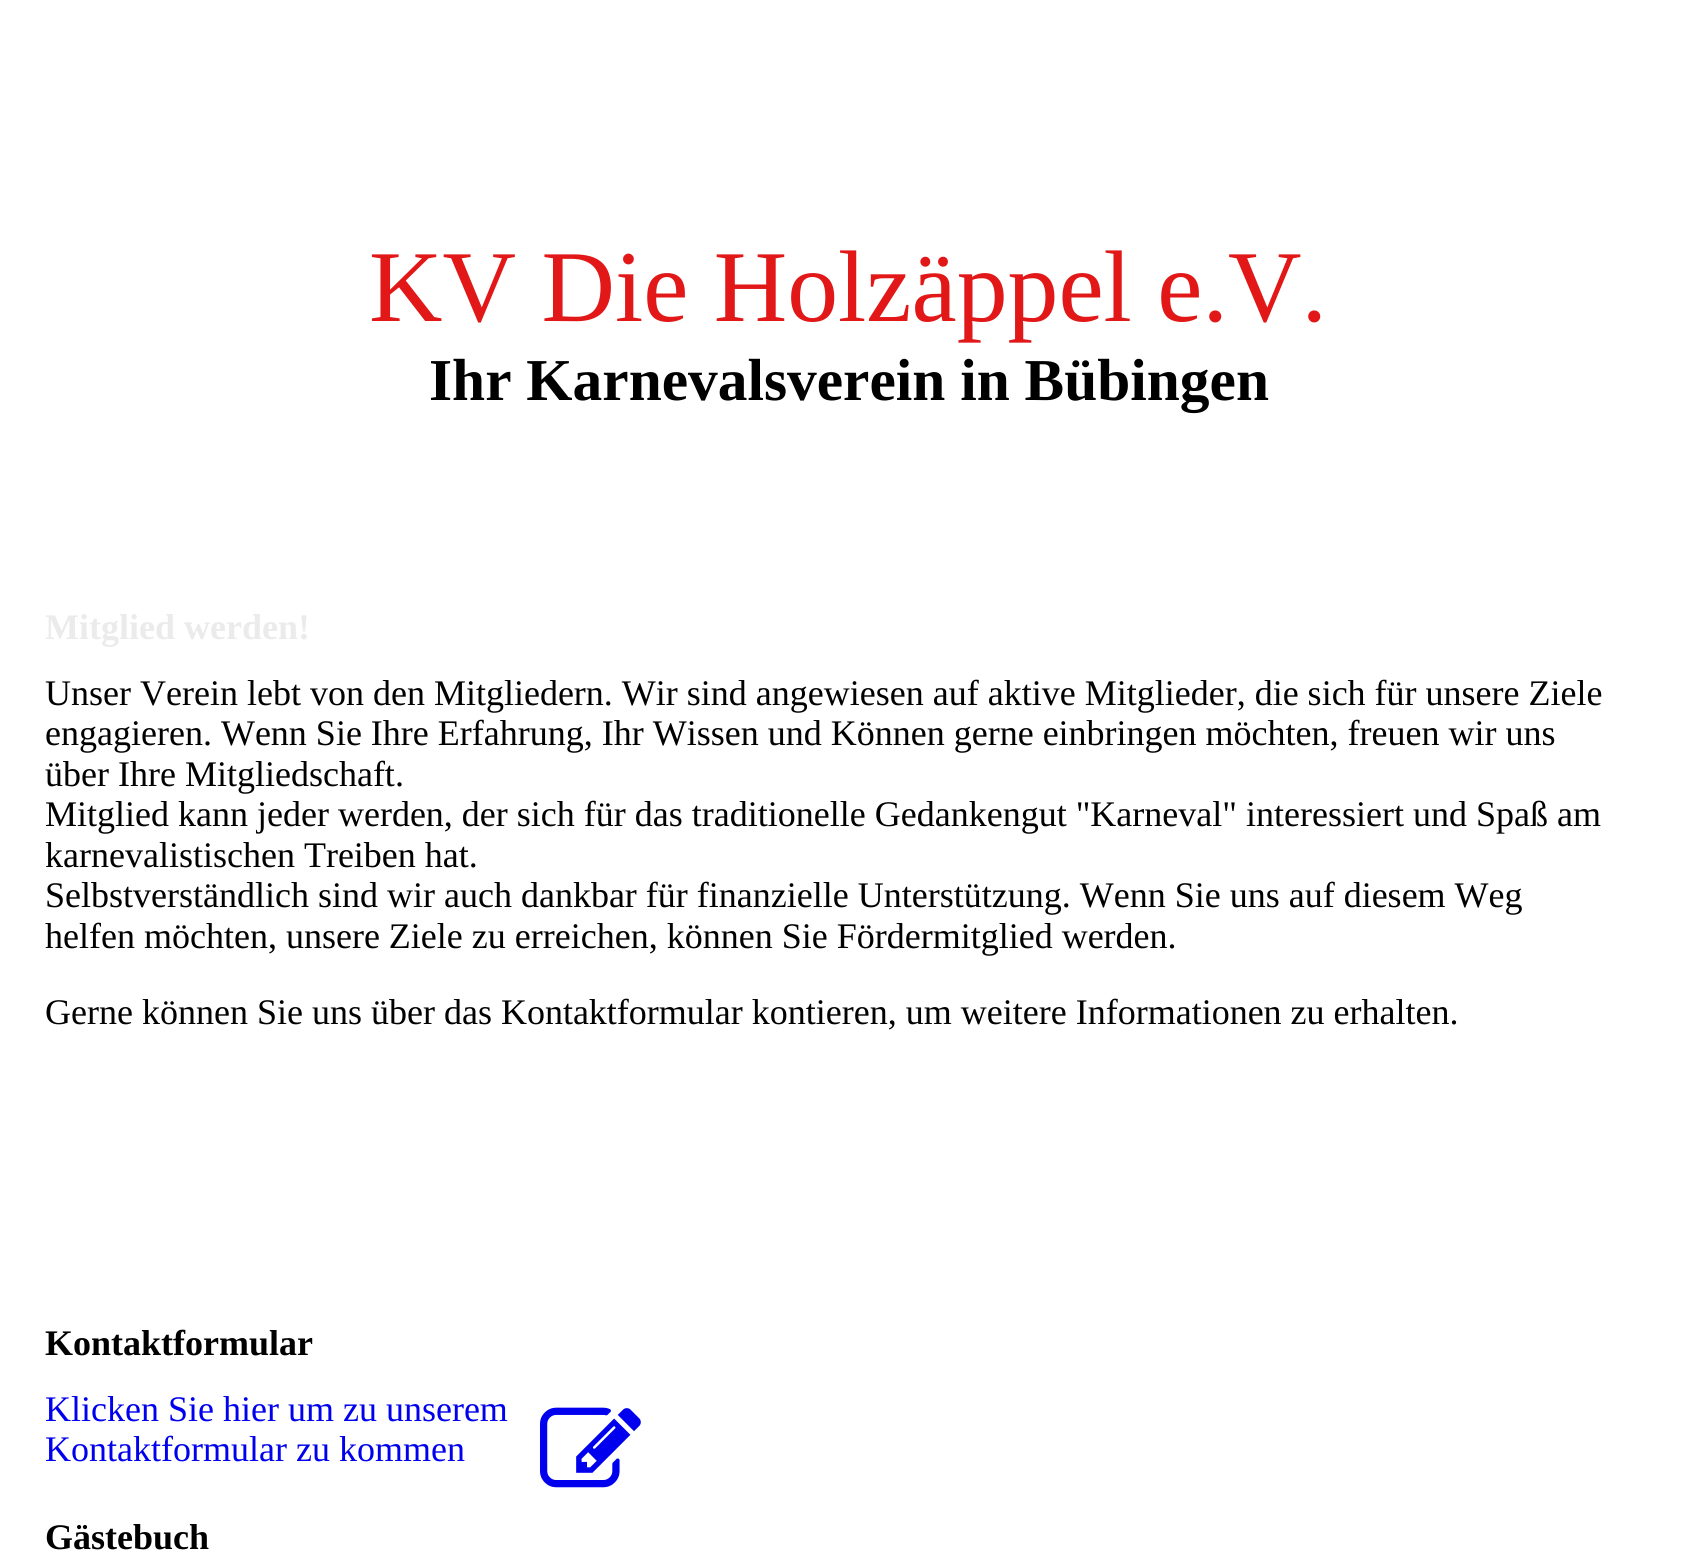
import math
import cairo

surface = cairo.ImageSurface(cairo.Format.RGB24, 1695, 1559)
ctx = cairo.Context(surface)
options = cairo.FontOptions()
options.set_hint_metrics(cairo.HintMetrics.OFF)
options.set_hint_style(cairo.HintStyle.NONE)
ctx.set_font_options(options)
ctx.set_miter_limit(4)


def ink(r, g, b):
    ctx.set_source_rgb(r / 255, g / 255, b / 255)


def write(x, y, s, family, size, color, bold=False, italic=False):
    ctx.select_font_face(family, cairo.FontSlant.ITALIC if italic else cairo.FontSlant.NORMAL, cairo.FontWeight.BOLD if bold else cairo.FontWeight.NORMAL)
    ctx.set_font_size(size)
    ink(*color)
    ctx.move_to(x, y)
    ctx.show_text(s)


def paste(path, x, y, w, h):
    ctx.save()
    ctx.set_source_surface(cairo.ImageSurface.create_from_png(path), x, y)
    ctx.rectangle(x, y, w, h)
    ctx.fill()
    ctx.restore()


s1 = dict(family="Liberation Serif", size=101.75, color=(226, 24, 24))
s2 = dict(family="Liberation Serif", size=59.4, color=(0, 0, 0), bold=True)
s3 = dict(family="Liberation Serif", size=36, color=(235, 235, 235), bold=True)
s4 = dict(family="Liberation Serif", size=36, color=(0, 0, 0))
s5 = dict(family="Liberation Serif", size=36, color=(0, 0, 0), bold=True)
s6 = dict(family="Liberation Serif", size=36, color=(0, 0, 238))

ink(255, 255, 255)
ctx.paint()
write(369, 321, "KV Die Holzäppel e.V.", **s1)
write(429, 400, "Ihr Karnevalsverein in Bübingen", **s2)
write(45, 639, "Mitglied werden!", **s3)
write(45, 705, "Unser Verein lebt von den Mitgliedern. Wir sind angewiesen auf aktive Mitglieder, die sich für unsere Ziele", **s4)
write(45, 745, "engagieren. Wenn Sie Ihre Erfahrung, Ihr Wissen und Können gerne einbringen möchten, freuen wir uns", **s4)
write(45, 786, "über Ihre Mitgliedschaft.", **s4)
write(45, 826, "Mitglied kann jeder werden, der sich für das traditionelle Gedankengut \"Karneval\" interessiert und Spaß am", **s4)
write(45, 867, "karnevalistischen Treiben hat.", **s4)
write(45, 907, "Selbstverständlich sind wir auch dankbar für finanzielle Unterstützung. Wenn Sie uns auf diesem Weg", **s4)
write(45, 948, "helfen möchten, unsere Ziele zu erreichen, können Sie Fördermitglied werden.", **s4)
write(45, 1024, "Gerne können Sie uns über das Kontaktformular kontieren, um weitere Informationen zu erhalten.", **s4)
write(45, 1355, "Kontaktformular", **s5)
write(45, 1421, "Klicken Sie hier um zu unserem", **s6)
write(45, 1461, "Kontaktformular zu kommen", **s6)
paste("pic1.png", 540, 1407, 101, 81)
write(45, 1549, "Gästebuch", **s5)
surface.write_to_png("screenshot.png")
